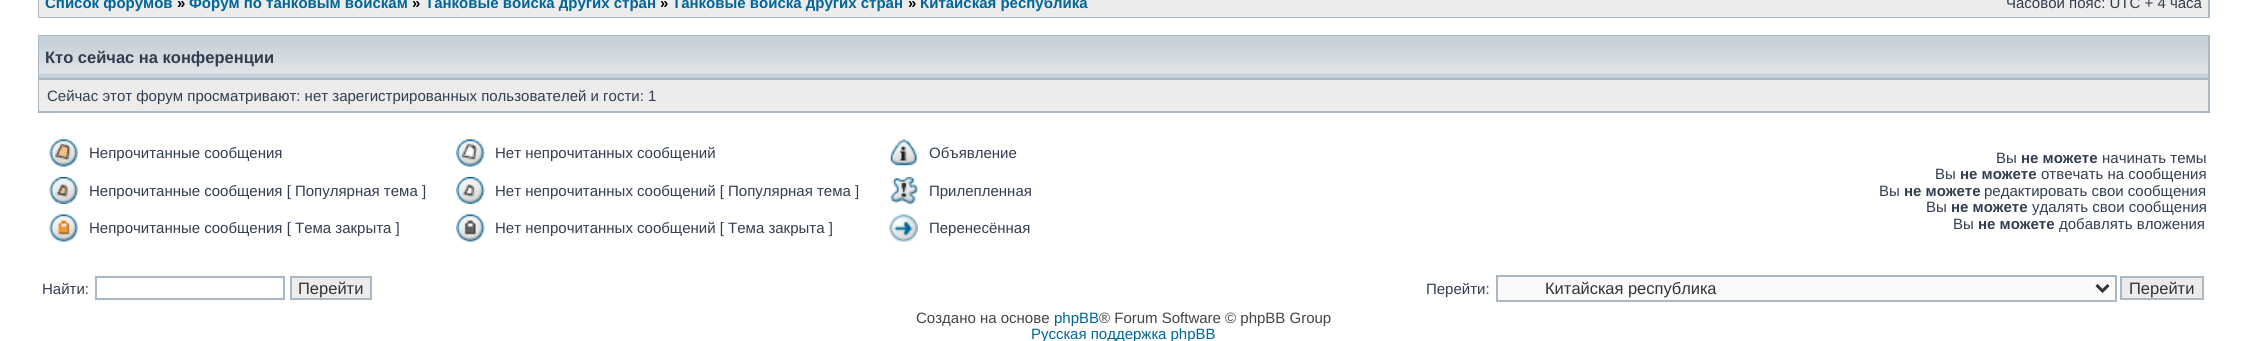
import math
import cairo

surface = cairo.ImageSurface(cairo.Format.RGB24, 2246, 341)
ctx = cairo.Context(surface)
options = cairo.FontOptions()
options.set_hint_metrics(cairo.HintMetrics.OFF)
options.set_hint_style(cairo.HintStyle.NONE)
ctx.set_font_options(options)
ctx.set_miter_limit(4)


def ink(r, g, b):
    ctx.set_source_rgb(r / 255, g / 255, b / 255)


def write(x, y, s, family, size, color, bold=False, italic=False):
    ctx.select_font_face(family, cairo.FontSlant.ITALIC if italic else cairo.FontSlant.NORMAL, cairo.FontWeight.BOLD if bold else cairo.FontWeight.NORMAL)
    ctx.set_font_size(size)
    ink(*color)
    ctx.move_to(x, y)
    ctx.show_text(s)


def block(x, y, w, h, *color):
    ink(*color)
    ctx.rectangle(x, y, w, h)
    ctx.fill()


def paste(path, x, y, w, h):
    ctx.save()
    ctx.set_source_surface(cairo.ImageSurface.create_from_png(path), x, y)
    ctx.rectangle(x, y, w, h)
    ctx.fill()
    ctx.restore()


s1 = dict(family="Liberation Sans", size=15, color=(0, 101, 151), bold=True)
s2 = dict(family="Liberation Sans", size=15, color=(0, 0, 0), bold=True)
s3 = dict(family="Liberation Sans", size=15, color=(50, 61, 79))
s4 = dict(family="Liberation Sans", size=16.5, color=(50, 61, 79), bold=True)
s5 = dict(family="Liberation Sans", size=15, color=(50, 61, 79), bold=True)
s6 = dict(family="Liberation Sans", size=16.5, color=(51, 51, 51))
s7 = dict(family="Liberation Sans", size=15, color=(68, 68, 68))
s8 = dict(family="Liberation Sans", size=15, color=(0, 101, 151))

ink(255, 255, 255)
ctx.paint()
block(38, 0, 2172, 18, 169, 184, 194)
block(39, 0, 2169, 17, 236, 236, 236)
write(45, 8, "Список форумов", **s1)
write(177, 8, "»", **s2)
write(189, 8, "Форум по танковым войскам", **s1)
write(412, 8, "»", **s2)
write(425, 8, "Танковые войска других стран", **s1)
write(660, 8, "»", **s2)
write(672, 8, "Танковые войска других стран", **s1)
write(908, 8, "»", **s2)
write(920, 8, "Китайская республика", **s1)
write(2006, 8, "Часовой пояс: UTC + 4 часа", **s3)
block(38, 35, 2172, 78, 169, 184, 194)
block(39, 74, 2169, 4, 199, 208, 215)
paste("pic1.png", 39, 36, 2169, 38)
write(45, 63, "Кто сейчас на конференции", **s4)
block(39, 80, 2169, 31, 236, 236, 236)
write(47, 101, "Сейчас этот форум просматривают: нет зарегистрированных пользователей и гости: 1", **s3)
paste("pic2.png", 49, 139, 29, 28)
write(89, 158, "Непрочитанные сообщения", **s3)
paste("pic3.png", 456, 139, 29, 28)
write(495, 158, "Нет непрочитанных сообщений", **s3)
paste("pic4.png", 889, 139, 29, 27)
write(929, 158, "Объявление", **s3)
paste("pic5.png", 49, 177, 29, 27)
write(89, 196, "Непрочитанные сообщения [ Популярная тема ]", **s3)
paste("pic6.png", 456, 177, 29, 27)
write(495, 196, "Нет непрочитанных сообщений [ Популярная тема ]", **s3)
paste("pic7.png", 890, 177, 28, 27)
write(929, 196, "Прилепленная", **s3)
paste("pic8.png", 49, 214, 29, 28)
write(89, 233, "Непрочитанные сообщения [ Тема закрыта ]", **s3)
paste("pic9.png", 456, 214, 29, 28)
write(495, 233, "Нет непрочитанных сообщений [ Тема закрыта ]", **s3)
paste("pic10.png", 889, 214, 29, 28)
write(929, 233, "Перенесённая", **s3)
write(1996, 163, "Вы", **s3)
write(2021, 163, "не можете", **s5)
write(2102, 163, "начинать темы", **s3)
write(1935, 179, "Вы", **s3)
write(1960, 179, "не можете", **s5)
write(2041, 179, "отвечать на сообщения", **s3)
write(1879, 196, "Вы", **s3)
write(1904, 196, "не можете", **s5)
write(1984, 196, "редактировать свои сообщения", **s3)
write(1926, 212, "Вы", **s3)
write(1951, 212, "не можете", **s5)
write(2032, 212, "удалять свои сообщения", **s3)
write(1953, 229, "Вы", **s3)
write(1978, 229, "не можете", **s5)
write(2059, 229, "добавлять вложения", **s3)
write(42, 294, "Найти:", **s3)
ctx.rectangle(96, 277, 188, 22)
ink(169, 184, 194)
ctx.stroke()
ink(236, 236, 236)
ctx.rectangle(291, 277, 80, 22)
ctx.fill_preserve()
ink(169, 184, 194)
ctx.stroke()
write(298, 294, "Перейти", **s6)
write(1426, 294, "Перейти:", **s3)
ink(250, 250, 250)
ctx.rectangle(1497, 276, 619, 25)
ctx.fill_preserve()
ink(169, 184, 194)
ctx.stroke()
ctx.new_path()
ctx.move_to(2096.5, 285)
ctx.line_to(2102.5, 291)
ctx.line_to(2108.5, 285)
ink(51, 51, 51)
ctx.set_line_width(3)
ctx.stroke()
write(1545, 294, "Китайская республика", **s6)
ink(236, 236, 236)
ctx.rectangle(2121, 277, 82, 22)
ctx.fill_preserve()
ink(169, 184, 194)
ctx.set_line_width(2)
ctx.stroke()
write(2129, 294, "Перейти", **s6)
write(916, 323, "Создано на основе", **s7)
write(1054, 323, "phpBB", **s8)
write(1099, 323, "® Forum Software © phpBB Group", **s7)
write(1031, 339, "Русская поддержка phpBB", **s8)
surface.write_to_png("screenshot.png")
